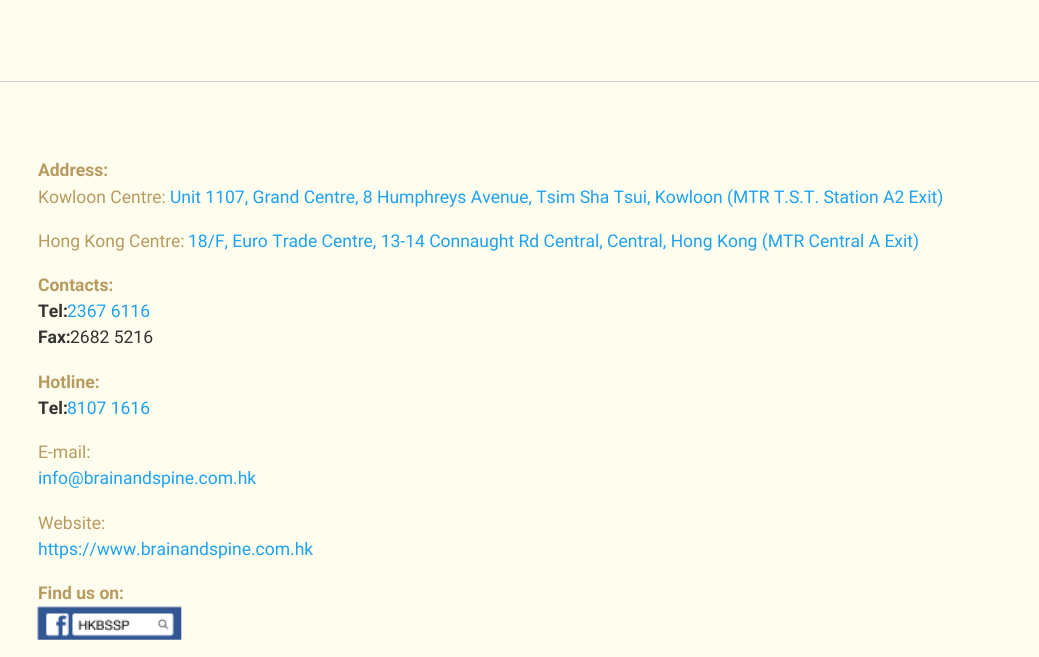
import math
import cairo

surface = cairo.ImageSurface(cairo.Format.RGB24, 1039, 657)
ctx = cairo.Context(surface)
options = cairo.FontOptions()
options.set_hint_metrics(cairo.HintMetrics.OFF)
options.set_hint_style(cairo.HintStyle.NONE)
ctx.set_font_options(options)
ctx.set_miter_limit(4)


def ink(r, g, b):
    ctx.set_source_rgb(r / 255, g / 255, b / 255)


def write(x, y, s, family, size, color, bold=False, italic=False):
    ctx.select_font_face(family, cairo.FontSlant.ITALIC if italic else cairo.FontSlant.NORMAL, cairo.FontWeight.BOLD if bold else cairo.FontWeight.NORMAL)
    ctx.set_font_size(size)
    ink(*color)
    ctx.move_to(x, y)
    ctx.show_text(s)


def block(x, y, w, h, *color):
    ink(*color)
    ctx.rectangle(x, y, w, h)
    ctx.fill()


def paste(path, x, y, w, h):
    ctx.save()
    ctx.set_source_surface(cairo.ImageSurface.create_from_png(path), x, y)
    ctx.rectangle(x, y, w, h)
    ctx.fill()
    ctx.restore()


s1 = dict(family="Roboto", size=17.5, color=(183, 154, 96), bold=True)
s2 = dict(family="Roboto", size=17.5, color=(183, 154, 96))
s3 = dict(family="Roboto", size=17.5, color=(29, 161, 243))
s4 = dict(family="Roboto", size=17.5, color=(51, 51, 51), bold=True)
s5 = dict(family="Roboto", size=17.5, color=(51, 51, 51))

ink(255, 255, 255)
ctx.paint()
block(0, 0, 1039, 81, 255, 253, 238)
block(0, 83, 1039, 574, 255, 253, 238)
block(0, 81, 1039, 1, 204, 204, 204)
write(38, 176, "Address:", **s1)
write(38, 203, "Kowloon Centre:", **s2)
write(170, 203, "Unit 1107, Grand Centre, 8 Humphreys Avenue, Tsim Sha Tsui, Kowloon (MTR T.S.T. Station A2 Exit)", **s3)
write(38, 247, "Hong Kong Centre:", **s2)
write(188, 247, "18/F, Euro Trade Centre, 13-14 Connaught Rd Central, Central, Hong Kong (MTR Central A Exit)", **s3)
write(38, 291, "Contacts:", **s1)
write(38, 317, "Tel:", **s4)
write(67, 317, "2367 6116", **s3)
write(38, 343, "Fax:", **s4)
write(70, 343, "2682 5216", **s5)
write(38, 388, "Hotline:", **s1)
write(38, 414, "Tel:", **s4)
write(67, 414, "8107 1616", **s3)
write(38, 458, "E-mail:", **s2)
write(38, 484, "info@brainandspine.com.hk", **s3)
write(38, 529, "Website:", **s2)
write(38, 555, "https://www.brainandspine.com.hk", **s3)
write(38, 599, "Find us on:", **s1)
paste("pic1.png", 37, 606, 145, 34)
surface.write_to_png("screenshot.png")
